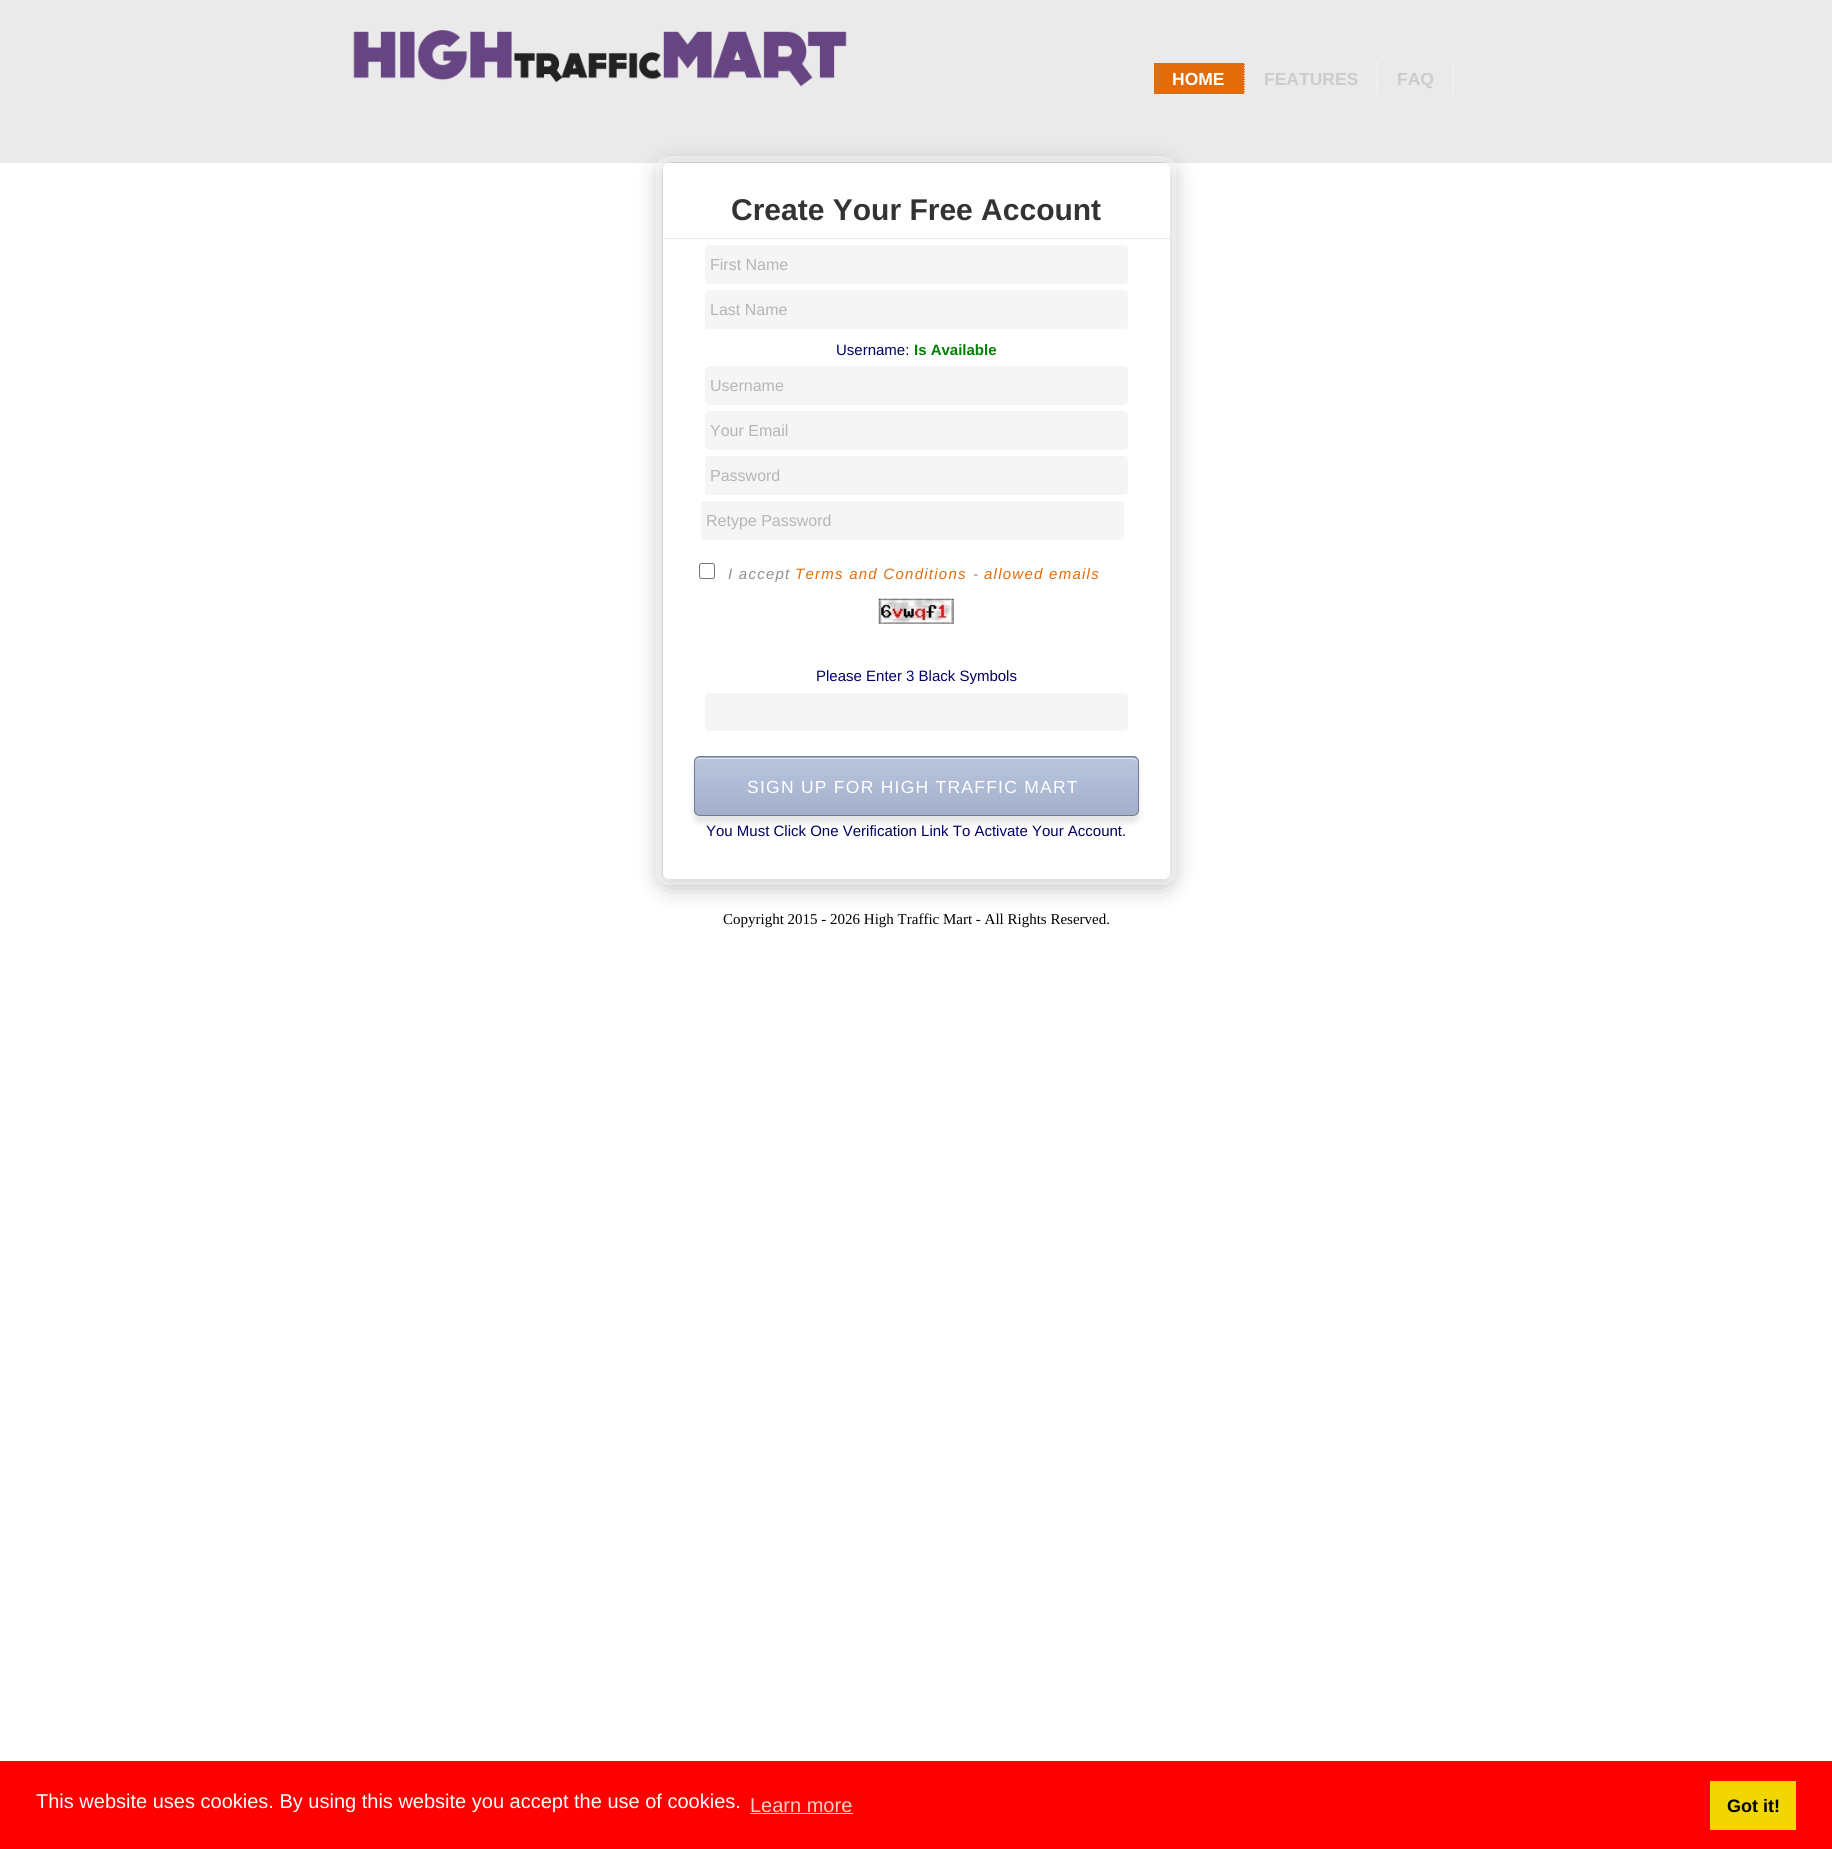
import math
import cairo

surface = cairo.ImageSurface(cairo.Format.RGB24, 1832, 1849)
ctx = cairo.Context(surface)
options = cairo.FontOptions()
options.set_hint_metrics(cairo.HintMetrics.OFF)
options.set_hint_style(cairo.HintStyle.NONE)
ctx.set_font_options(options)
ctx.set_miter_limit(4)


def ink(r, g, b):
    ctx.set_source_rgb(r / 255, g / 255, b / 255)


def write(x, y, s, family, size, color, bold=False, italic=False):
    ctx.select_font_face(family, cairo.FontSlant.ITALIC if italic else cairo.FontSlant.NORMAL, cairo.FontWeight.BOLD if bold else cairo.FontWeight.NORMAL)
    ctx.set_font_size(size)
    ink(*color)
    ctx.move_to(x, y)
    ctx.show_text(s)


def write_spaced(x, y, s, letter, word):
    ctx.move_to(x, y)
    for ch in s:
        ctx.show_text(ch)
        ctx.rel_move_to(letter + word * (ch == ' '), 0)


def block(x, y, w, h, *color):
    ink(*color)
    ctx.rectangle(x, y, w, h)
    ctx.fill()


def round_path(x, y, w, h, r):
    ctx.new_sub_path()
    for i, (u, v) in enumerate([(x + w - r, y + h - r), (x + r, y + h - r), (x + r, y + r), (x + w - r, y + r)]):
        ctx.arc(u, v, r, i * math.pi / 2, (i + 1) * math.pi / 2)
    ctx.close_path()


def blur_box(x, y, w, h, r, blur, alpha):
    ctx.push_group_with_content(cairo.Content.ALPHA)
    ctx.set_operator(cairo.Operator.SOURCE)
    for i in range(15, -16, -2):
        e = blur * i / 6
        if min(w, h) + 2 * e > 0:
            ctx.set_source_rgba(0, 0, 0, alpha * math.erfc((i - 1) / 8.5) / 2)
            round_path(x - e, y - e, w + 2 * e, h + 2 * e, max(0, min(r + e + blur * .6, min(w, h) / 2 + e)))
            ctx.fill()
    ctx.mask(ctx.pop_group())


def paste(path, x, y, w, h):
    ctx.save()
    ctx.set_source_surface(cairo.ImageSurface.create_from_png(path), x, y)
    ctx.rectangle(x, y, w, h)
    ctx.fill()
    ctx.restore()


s1 = dict(family="Liberation Sans", size=17.5, color=(255, 255, 255), bold=True)
s2 = dict(family="Liberation Sans", size=17.5, color=(204, 204, 204), bold=True)
s3 = dict(family="Liberation Sans", size=30, color=(51, 51, 51), bold=True)
s4 = dict(family="Liberation Sans", size=16, color=(181, 181, 181))
s5 = dict(family="Liberation Sans", size=15, color=(0, 0, 102))
s6 = dict(family="Liberation Sans", size=15, color=(0, 128, 0), bold=True)
s7 = dict(family="Liberation Serif", size=15, color=(0, 0, 0))
s8 = dict(family="Liberation Sans", size=20, color=(255, 255, 255))
s9 = dict(family="Liberation Sans", size=20, color=(255, 204, 204))
s10 = dict(family="Liberation Sans", size=18, color=(0, 0, 0), bold=True)

ink(255, 255, 255)
ctx.paint()
block(0, 0, 1832, 163, 234, 234, 234)
paste("pic1.png", 353, 30, 494, 57)
block(1154, 63, 91, 31, 227, 108, 10)
ctx.new_path()
ctx.move_to(1244.5, 62.5)
ctx.line_to(1244.5, 94)
ink(255, 255, 255)
ctx.set_line_width(1.2)
ctx.set_dash([1.25, 1.25])
ctx.stroke()
write(1172, 85, "HOME", **s1)
ctx.new_path()
ctx.move_to(1377, 62.5)
ctx.line_to(1377, 94)
ctx.stroke()
write(1264, 85, "FEATURES", **s2)
ctx.new_path()
ctx.move_to(1453, 62.5)
ctx.line_to(1453, 94)
ink(255, 255, 255)
ctx.stroke()
write(1397, 85, "FAQ", **s2)
ink(0, 0, 0)
blur_box(663, 168, 507, 716, 6, 12.5, 0.33)
round_path(659, 159, 514, 723, 10)
ctx.set_source_rgba(1, 1, 1, 0.4)
ctx.set_line_width(6)
ctx.set_dash([])
ctx.stroke()
ink(255, 255, 255)
round_path(663, 163, 507, 716, 6)
ctx.fill()
write(731, 220, "Create Your Free Account", **s3)
block(663, 238, 507, 1, 232, 232, 232)
ink(245, 245, 245)
round_path(705, 245, 423, 39, 4)
ctx.fill()
write(710, 270, "First Name", **s4)
ink(245, 245, 245)
round_path(705, 290, 423, 39, 4)
ctx.fill()
write(710, 315, "Last Name", **s4)
write(836, 355, "Username:", **s5)
write(914, 355, "Is Available", **s6)
ink(245, 245, 245)
round_path(705, 366, 423, 39, 4)
ctx.fill()
write(710, 391, "Username", **s4)
ink(245, 245, 245)
round_path(705, 411, 423, 39, 4)
ctx.fill()
write(710, 436, "Your Email", **s4)
ink(245, 245, 245)
round_path(705, 456, 423, 39, 4)
ctx.fill()
write(710, 481, "Password", **s4)
ink(245, 245, 245)
round_path(701, 501, 423, 39, 4)
ctx.fill()
write(706, 526, "Retype Password", **s4)
round_path(699.5, 563.5, 15, 15, 2)
ink(118, 118, 118)
ctx.set_line_width(1)
ctx.stroke()
ctx.select_font_face("Liberation Sans", cairo.FontSlant.ITALIC)
ctx.set_font_size(15)
ink(143, 143, 143)
write_spaced(728, 579, "I accept", 1.25, 0)
ink(227, 108, 10)
write_spaced(795, 579, "Terms and Conditions", 1.25, 0)
ink(143, 143, 143)
write_spaced(973, 579, "-", 1.25, 0)
ink(227, 108, 10)
write_spaced(984, 579, "allowed emails", 1.25, 0)
paste("pic2.png", 878, 598, 76, 26)
write(816, 681, "Please Enter 3 Black Symbols", **s5)
ink(245, 245, 245)
round_path(705, 693, 423, 38, 4)
ctx.fill()
ink(0, 0, 0)
blur_box(694, 763, 445, 60, 6, 3, 0.1)
ctx.save()
round_path(694, 756, 445, 60, 6)
ctx.clip()
gradient = cairo.LinearGradient(695, 700, 695, 758)
gradient.add_color_stop_rgba(0, 0.725, 0.773, 0.867, 1)
gradient.add_color_stop_rgba(1, 0.643, 0.69, 0.796, 1)
ctx.set_source(gradient)
ctx.rectangle(694, 756, 445, 2)
ctx.fill()
gradient = cairo.LinearGradient(695, 758, 695, 815)
gradient.add_color_stop_rgba(0, 0.725, 0.773, 0.867, 1)
gradient.add_color_stop_rgba(1, 0.643, 0.69, 0.796, 1)
ctx.set_source(gradient)
ctx.rectangle(694, 758, 445, 57)
ctx.fill()
ctx.restore()
ink(220, 226, 238)
ctx.new_path()
ctx.move_to(700, 759)
ctx.line_to(1132, 759)
ctx.curve_to(1135, 759, 1138, 761, 1138, 764)
ctx.curve_to(1138, 761, 1136, 758, 1133, 758)
ctx.line_to(700, 758)
ctx.curve_to(697, 758, 695, 761, 695, 764)
ctx.curve_to(695, 761, 697, 759, 700, 759)
ctx.close_path()
ctx.fill()
round_path(694.5, 756.5, 444, 59, 5.5)
ink(115, 123, 141)
ctx.stroke()
ctx.set_font_size(17.5)
ink(255, 255, 255)
write_spaced(747, 793, "SIGN UP FOR HIGH TRAFFIC MART", 1.25, 0)
write(706, 836, "You Must Click One Verification Link To Activate Your Account.", **s5)
write(723, 924, "Copyright 2015 - 2026 High Traffic Mart - All Rights Reserved.", **s7)
block(0, 1761, 1832, 88, 255, 0, 0)
write(36, 1808, "This website uses cookies. By using this website you accept the use of cookies.", **s8)
write(750, 1812, "Learn more", **s9)
block(750, 1813, 103, 1, 255, 204, 204)
block(1710, 1781, 86, 49, 241, 214, 0)
write(1727, 1812, "Got it!", **s10)
surface.write_to_png("screenshot.png")
